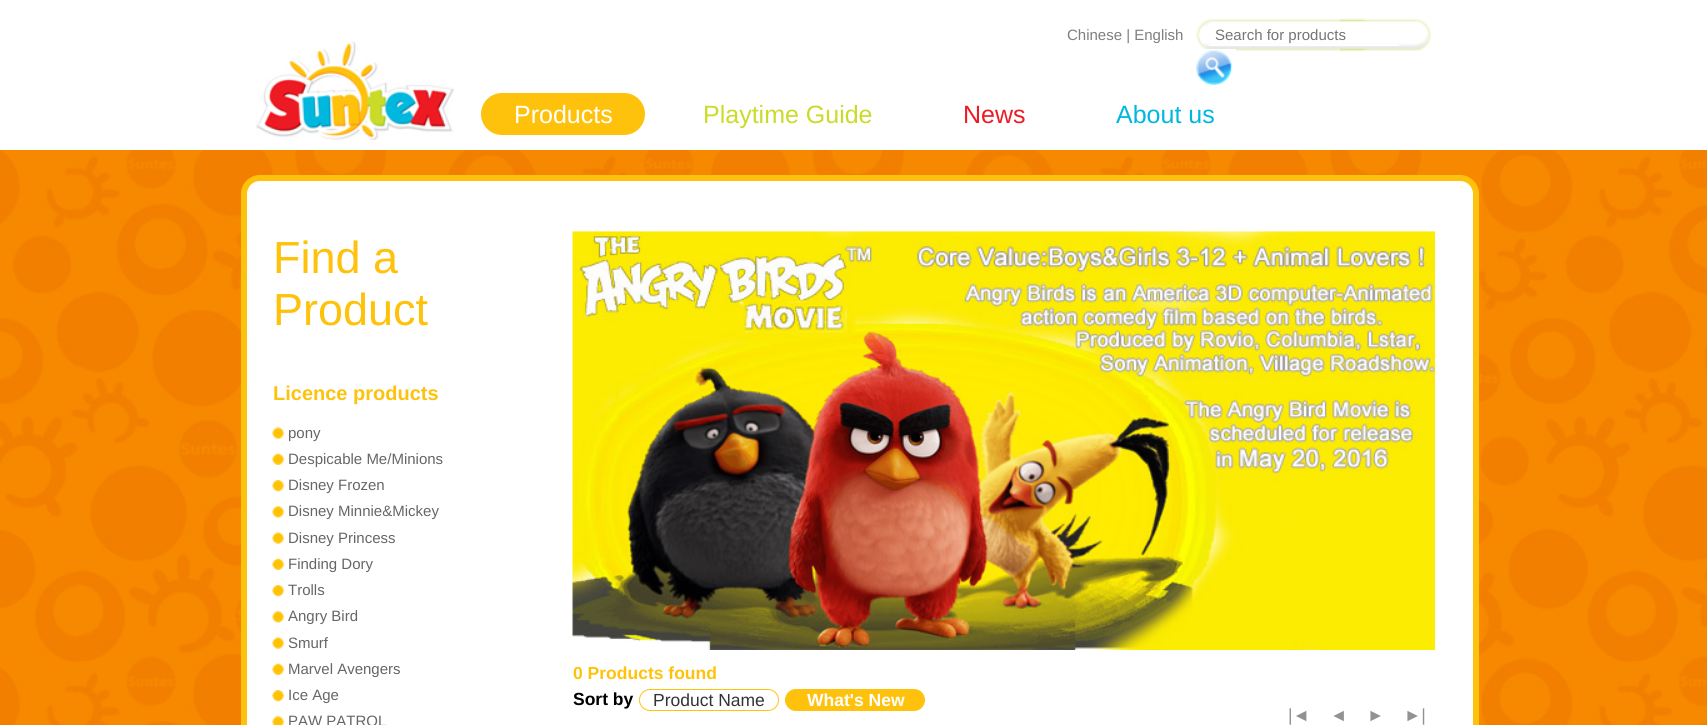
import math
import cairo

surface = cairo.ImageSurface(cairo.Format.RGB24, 1707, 725)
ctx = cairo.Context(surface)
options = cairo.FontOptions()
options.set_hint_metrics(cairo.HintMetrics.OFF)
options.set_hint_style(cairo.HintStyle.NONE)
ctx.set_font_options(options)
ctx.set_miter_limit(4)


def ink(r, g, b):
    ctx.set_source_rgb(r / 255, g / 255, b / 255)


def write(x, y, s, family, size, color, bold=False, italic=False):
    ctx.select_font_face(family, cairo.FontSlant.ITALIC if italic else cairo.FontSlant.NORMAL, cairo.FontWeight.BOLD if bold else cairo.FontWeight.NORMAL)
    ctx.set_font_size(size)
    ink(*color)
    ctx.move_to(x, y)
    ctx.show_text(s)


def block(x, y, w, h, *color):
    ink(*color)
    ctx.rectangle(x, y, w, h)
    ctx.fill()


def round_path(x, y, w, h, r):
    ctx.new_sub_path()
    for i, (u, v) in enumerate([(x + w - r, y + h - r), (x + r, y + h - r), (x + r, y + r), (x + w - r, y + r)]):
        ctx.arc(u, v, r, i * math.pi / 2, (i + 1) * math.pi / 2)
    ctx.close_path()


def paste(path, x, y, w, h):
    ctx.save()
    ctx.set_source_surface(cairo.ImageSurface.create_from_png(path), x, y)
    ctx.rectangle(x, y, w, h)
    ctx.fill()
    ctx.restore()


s1 = dict(family="Liberation Sans", size=15, color=(126, 126, 126))
s2 = dict(family="Liberation Sans", size=15, color=(117, 117, 117))
s3 = dict(family="Liberation Sans", size=25, color=(255, 255, 255))
s4 = dict(family="Liberation Sans", size=25, color=(203, 219, 41))
s5 = dict(family="Liberation Sans", size=25, color=(237, 27, 35))
s6 = dict(family="Liberation Sans", size=25, color=(0, 184, 222))
s7 = dict(family="Liberation Sans", size=45, color=(255, 194, 12))
s8 = dict(family="Liberation Sans", size=20, color=(255, 194, 12), bold=True)
s9 = dict(family="Liberation Sans", size=15, color=(102, 102, 102))
s10 = dict(family="Liberation Sans", size=17.5, color=(255, 194, 12), bold=True)
s11 = dict(family="Liberation Sans", size=17.5, color=(0, 0, 0), bold=True)
s12 = dict(family="Liberation Sans", size=17.5, color=(51, 51, 51))
s13 = dict(family="Liberation Sans", size=17.5, color=(255, 255, 255), bold=True)
s14 = dict(family="Liberation Sans", size=17.5, color=(146, 146, 146))

ink(255, 255, 255)
ctx.paint()
paste("pic1.png", 0, 150, 1707, 575)
paste("pic2.png", 256, 41, 198, 99)
write(1067, 40, "Chinese | English", **s1)
paste("pic3.png", 1196, 18, 235, 34)
block(1209, 44, 190, 2, 255, 255, 255)
write(1215, 40, "Search for products", **s2)
block(1203, 49, 33, 3, 255, 255, 255)
paste("pic4.png", 1196, 50, 36, 35)
ink(255, 194, 12)
round_path(481, 93, 164, 42, 21)
ctx.fill()
write(514, 123, "Products", **s3)
write(703, 123, "Playtime Guide", **s4)
write(963, 123, "News", **s5)
write(1116, 123, "About us", **s6)
ink(255, 255, 255)
round_path(244, 178, 1232, 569, 16)
ctx.fill_preserve()
ink(255, 194, 12)
ctx.set_line_width(6)
ctx.stroke()
write(273, 273, "Find a", **s7)
write(273, 325, "Product", **s7)
write(273, 400, "Licence products", **s8)
paste("pic5.png", 272, 427, 12, 12)
write(288, 438, "pony", **s9)
paste("pic6.png", 272, 453, 12, 12)
write(288, 464, "Despicable Me/Minions", **s9)
paste("pic7.png", 272, 480, 12, 12)
write(288, 490, "Disney Frozen", **s9)
paste("pic8.png", 272, 506, 12, 12)
write(288, 516, "Disney Minnie&Mickey", **s9)
paste("pic5.png", 272, 532, 12, 12)
write(288, 543, "Disney Princess", **s9)
paste("pic6.png", 272, 558, 12, 12)
write(288, 569, "Finding Dory", **s9)
paste("pic9.png", 272, 585, 12, 12)
write(288, 595, "Trolls", **s9)
paste("pic8.png", 272, 611, 12, 12)
write(288, 621, "Angry Bird", **s9)
paste("pic5.png", 272, 637, 12, 12)
write(288, 648, "Smurf", **s9)
paste("pic6.png", 272, 663, 12, 12)
write(288, 674, "Marvel Avengers", **s9)
paste("pic7.png", 272, 690, 12, 12)
write(288, 700, "Ice Age", **s9)
paste("pic10.png", 272, 716, 12, 9)
write(288, 726, "PAW PATROL", **s9)
paste("pic11.png", 572, 231, 863, 419)
write(573, 679, "0 Products found", **s10)
write(573, 705, "Sort by", **s11)
round_path(639.5, 689.5, 139, 21, 10.5)
ink(255, 194, 12)
ctx.set_line_width(1)
ctx.stroke()
write(653, 706, "Product Name", **s12)
ink(255, 194, 12)
round_path(785.5, 689.5, 139, 21, 10.5)
ctx.fill_preserve()
ctx.stroke()
write(807, 706, "What's New", **s13)
write(1288, 721, "|◄", **s14)
write(1330, 721, "◄", **s14)
write(1367, 721, "►", **s14)
write(1404, 721, "►|", **s14)
surface.write_to_png("screenshot.png")
